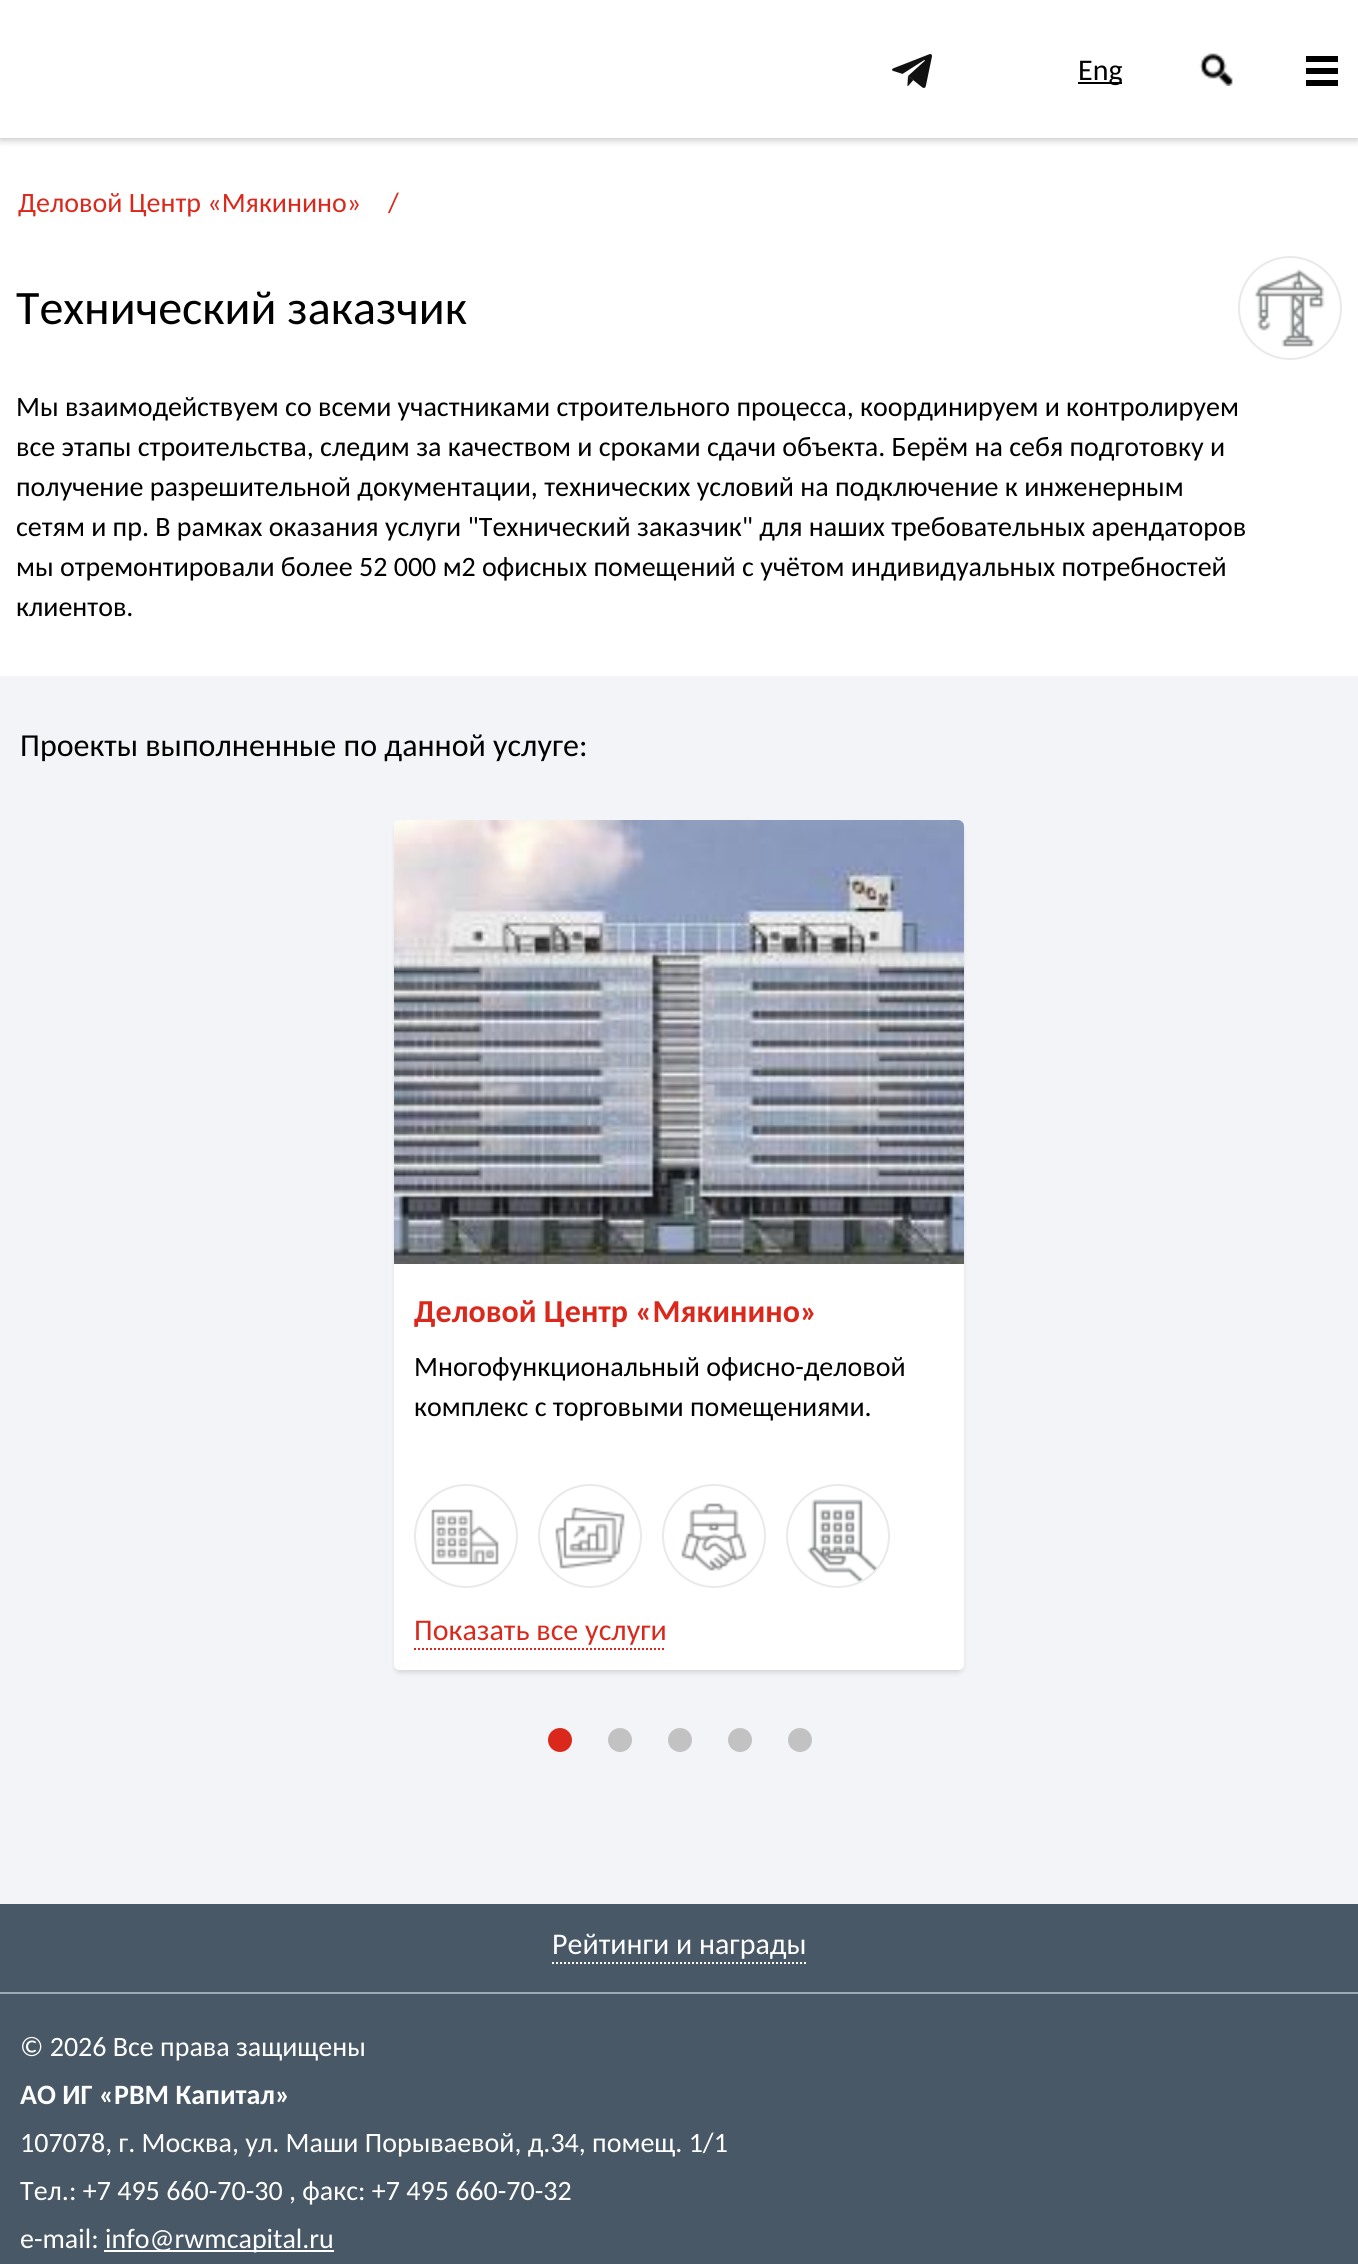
import math
import cairo

surface = cairo.ImageSurface(cairo.Format.RGB24, 1358, 2264)
ctx = cairo.Context(surface)
options = cairo.FontOptions()
options.set_hint_metrics(cairo.HintMetrics.OFF)
options.set_hint_style(cairo.HintStyle.NONE)
ctx.set_font_options(options)
ctx.set_miter_limit(4)


def ink(r, g, b):
    ctx.set_source_rgb(r / 255, g / 255, b / 255)


def write(x, y, s, family, size, color, bold=False, italic=False):
    ctx.select_font_face(family, cairo.FontSlant.ITALIC if italic else cairo.FontSlant.NORMAL, cairo.FontWeight.BOLD if bold else cairo.FontWeight.NORMAL)
    ctx.set_font_size(size)
    ink(*color)
    ctx.move_to(x, y)
    ctx.show_text(s)


def block(x, y, w, h, *color):
    ink(*color)
    ctx.rectangle(x, y, w, h)
    ctx.fill()


def round_path(x, y, w, h, r):
    ctx.new_sub_path()
    for i, (u, v) in enumerate([(x + w - r, y + h - r), (x + r, y + h - r), (x + r, y + r), (x + w - r, y + r)]):
        ctx.arc(u, v, r, i * math.pi / 2, (i + 1) * math.pi / 2)
    ctx.close_path()


def blur_box(x, y, w, h, r, blur, alpha):
    ctx.push_group_with_content(cairo.Content.ALPHA)
    ctx.set_operator(cairo.Operator.SOURCE)
    for i in range(15, -16, -2):
        e = blur * i / 6
        if min(w, h) + 2 * e > 0:
            ctx.set_source_rgba(0, 0, 0, alpha * math.erfc((i - 1) / 8.5) / 2)
            round_path(x - e, y - e, w + 2 * e, h + 2 * e, max(0, min(r + e + blur * .6, min(w, h) / 2 + e)))
            ctx.fill()
    ctx.mask(ctx.pop_group())


def paste(path, x, y, w, h):
    ctx.save()
    ctx.set_source_surface(cairo.ImageSurface.create_from_png(path), x, y)
    ctx.rectangle(x, y, w, h)
    ctx.fill()
    ctx.restore()


s1 = dict(family="Carlito", size=30, color=(0, 0, 0))
s2 = dict(family="Carlito", size=28, color=(218, 41, 28))
s3 = dict(family="Carlito", size=48, color=(0, 0, 0))
s4 = dict(family="Carlito", size=28, color=(0, 0, 0))
s5 = dict(family="Carlito", size=32, color=(0, 0, 0))
s6 = dict(family="Carlito", size=32, color=(218, 41, 28), bold=True)
s7 = dict(family="Carlito", size=30, color=(218, 41, 28))
s8 = dict(family="Carlito", size=30, color=(255, 255, 255))
s9 = dict(family="Carlito", size=28, color=(255, 255, 255))
s10 = dict(family="Carlito", size=28, color=(255, 255, 255), bold=True)

ink(255, 255, 255)
ctx.paint()
ctx.save()
ctx.rectangle(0, 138, 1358, 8)
ctx.clip()
ink(0, 0, 0)
blur_box(0, 0, 1358, 138, 0, 5, 0.33)
ctx.restore()
paste("pic1.png", 892, 54, 40, 34)
block(1078, 82, 44, 2, 0, 0, 0)
write(1078, 80, "Eng", **s1)
paste("pic2.png", 1199, 53, 34, 33)
block(1306, 56, 32, 6, 0, 0, 0)
block(1306, 68, 32, 6, 0, 0, 0)
block(1306, 80, 32, 6, 0, 0, 0)
write(18, 212, "Деловой Центр «Мякинино»", **s2)
write(388, 212, "/", **s2)
write(16, 324, "Технический заказчик", **s3)
ctx.new_path()
ctx.arc(1290, 308, 51, 0, 2 * math.pi)
ink(232, 233, 234)
ctx.stroke()
paste("pic3.png", 1254, 269, 71, 78)
write(16, 416, "Мы взаимодействуем со всеми участниками строительного процесса, координируем и контролируем", **s4)
write(16, 456, "все этапы строительства, следим за качеством и сроками сдачи объекта. Берём на себя подготовку и", **s4)
write(16, 496, "получение разрешительной документации, технических условий на подключение к инженерным", **s4)
write(16, 536, "сетям и пр. В рамках оказания услуги \"Технический заказчик\" для наших требовательных арендаторов", **s4)
write(16, 576, "мы отремонтировали более 52 000 м2 офисных помещений с учётом индивидуальных потребностей", **s4)
write(16, 616, "клиентов.", **s4)
block(0, 676, 1358, 1228, 242, 244, 247)
write(20, 756, "Проекты выполненные по данной услуге:", **s5)
ink(0, 0, 0)
blur_box(396, 826, 566, 846, 4, 3, 0.15)
ink(255, 255, 255)
round_path(394, 820, 570, 850, 6)
ctx.fill()
paste("pic4.png", 394, 820, 570, 444)
write(414, 1322, "Деловой Центр «Мякинино»", **s6)
write(414, 1376, "Многофункциональный офисно-деловой", **s4)
write(414, 1416, "комплекс с торговыми помещениями.", **s4)
ctx.new_path()
ctx.arc(466, 1536, 51, 0, 2 * math.pi)
ink(232, 233, 234)
ctx.stroke()
paste("pic5.png", 431, 1509, 68, 56)
ctx.arc(590, 1536, 51, 0, 2 * math.pi)
ctx.stroke()
paste("pic6.png", 555, 1507, 70, 62)
ctx.arc(714, 1536, 51, 0, 2 * math.pi)
ctx.stroke()
paste("pic7.png", 681, 1503, 66, 68)
ctx.arc(838, 1536, 51, 0, 2 * math.pi)
ctx.stroke()
paste("pic8.png", 807, 1499, 70, 83)
ink(255, 255, 255)
ctx.new_path()
ctx.move_to(394, 1590)
ctx.line_to(964, 1590)
ctx.line_to(964, 1664)
ctx.curve_to(964, 1667.5, 961.5, 1670, 958, 1670)
ctx.line_to(400, 1670)
ctx.curve_to(396.5, 1670, 394, 1667.5, 394, 1664)
ctx.close_path()
ctx.fill()
ctx.new_path()
ctx.move_to(414, 1649)
ctx.line_to(666, 1649)
ink(218, 41, 28)
ctx.set_dash([2, 2])
ctx.stroke()
write(414, 1640, "Показать все услуги", **s7)
ctx.new_path()
ctx.arc(560, 1740, 12, 0, 2 * math.pi)
ctx.fill()
ink(194, 194, 194)
ctx.arc(620, 1740, 12, 0, 2 * math.pi)
ctx.fill()
ctx.arc(680, 1740, 12, 0, 2 * math.pi)
ctx.fill()
ctx.arc(740, 1740, 12, 0, 2 * math.pi)
ctx.fill()
ctx.arc(800, 1740, 12, 0, 2 * math.pi)
ctx.fill()
block(0, 1994, 1358, 270, 72, 88, 102)
block(0, 1904, 1358, 88, 72, 88, 102)
block(0, 1992, 1358, 2, 156, 170, 178)
write(552, 1954, "Рейтинги и награды", **s8)
ctx.new_path()
ctx.move_to(552, 1963)
ctx.line_to(806, 1963)
ctx.stroke()
write(20, 2056, "© 2026 Все права защищены", **s9)
write(20, 2104, "АО ИГ «РВМ Капитал»", **s10)
write(20, 2152, "107078, г. Москва, ул. Маши Порываевой, д.34, помещ. 1/1", **s9)
write(20, 2200, "Тел.: +7 495 660-70-30 , факс: +7 495 660-70-32", **s9)
write(20, 2248, "e-mail:", **s9)
block(104, 2250, 230, 2, 255, 255, 255)
write(105, 2248, "info@rwmcapital.ru", **s9)
surface.write_to_png("screenshot.png")
